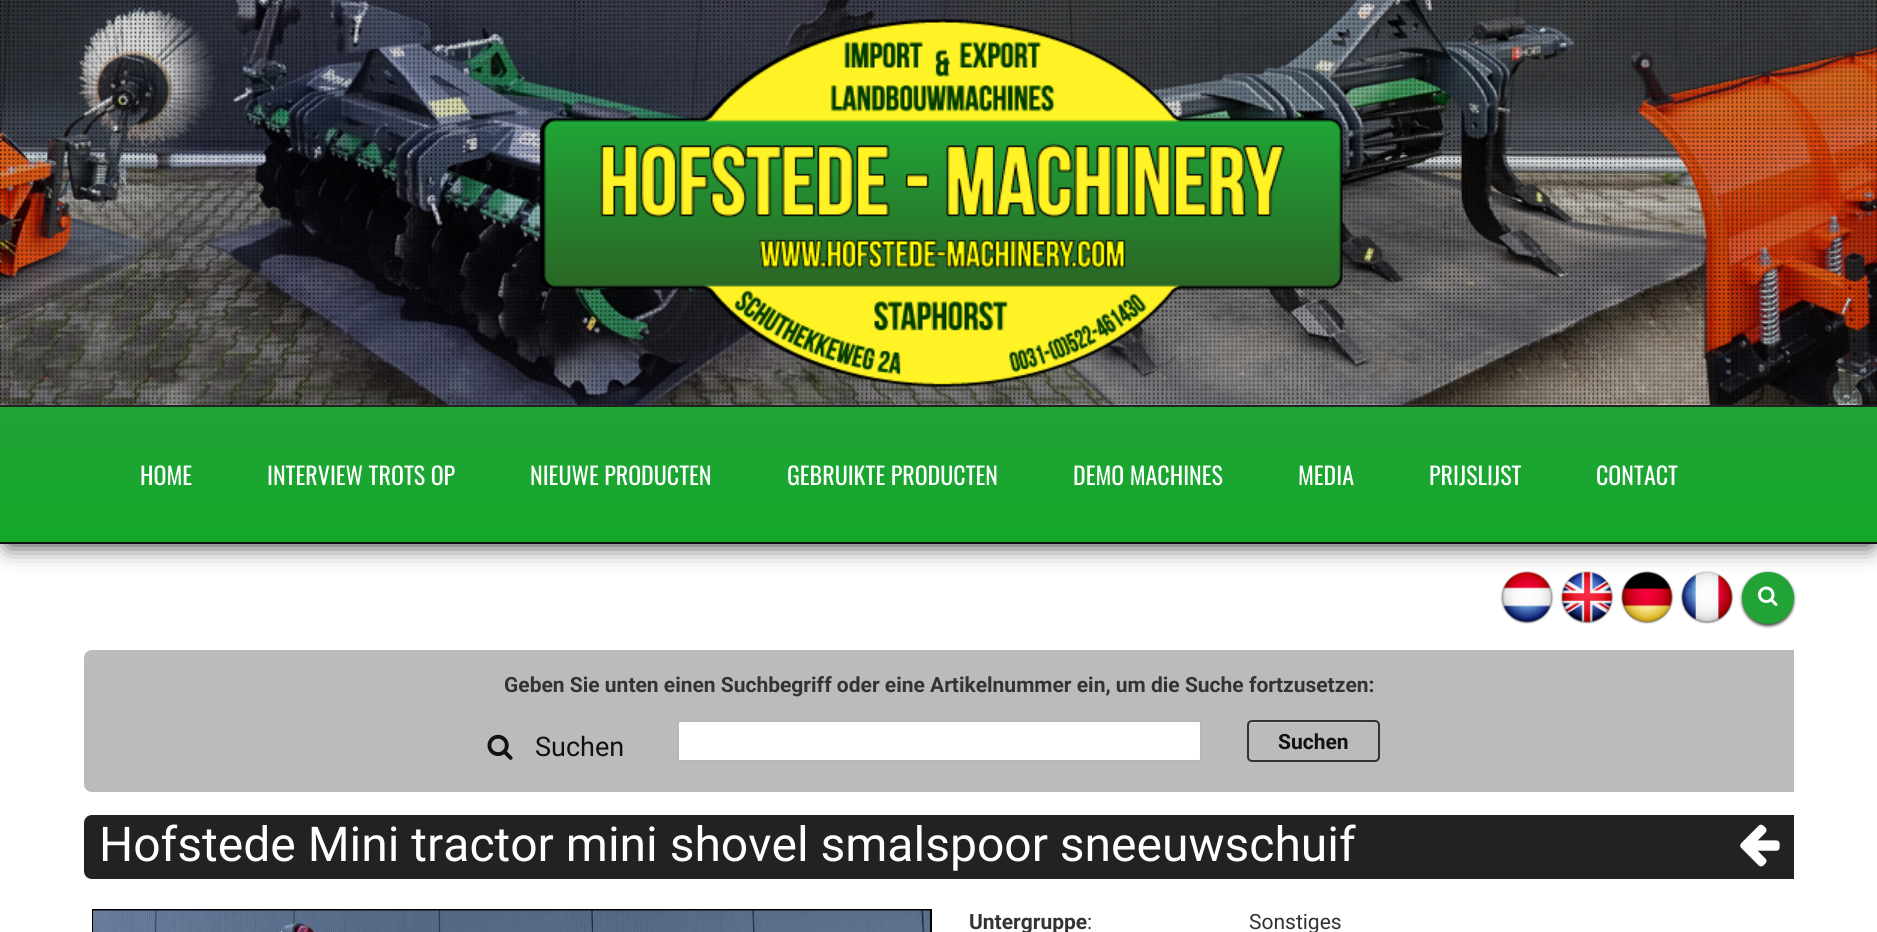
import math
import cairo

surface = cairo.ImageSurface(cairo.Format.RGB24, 1877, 932)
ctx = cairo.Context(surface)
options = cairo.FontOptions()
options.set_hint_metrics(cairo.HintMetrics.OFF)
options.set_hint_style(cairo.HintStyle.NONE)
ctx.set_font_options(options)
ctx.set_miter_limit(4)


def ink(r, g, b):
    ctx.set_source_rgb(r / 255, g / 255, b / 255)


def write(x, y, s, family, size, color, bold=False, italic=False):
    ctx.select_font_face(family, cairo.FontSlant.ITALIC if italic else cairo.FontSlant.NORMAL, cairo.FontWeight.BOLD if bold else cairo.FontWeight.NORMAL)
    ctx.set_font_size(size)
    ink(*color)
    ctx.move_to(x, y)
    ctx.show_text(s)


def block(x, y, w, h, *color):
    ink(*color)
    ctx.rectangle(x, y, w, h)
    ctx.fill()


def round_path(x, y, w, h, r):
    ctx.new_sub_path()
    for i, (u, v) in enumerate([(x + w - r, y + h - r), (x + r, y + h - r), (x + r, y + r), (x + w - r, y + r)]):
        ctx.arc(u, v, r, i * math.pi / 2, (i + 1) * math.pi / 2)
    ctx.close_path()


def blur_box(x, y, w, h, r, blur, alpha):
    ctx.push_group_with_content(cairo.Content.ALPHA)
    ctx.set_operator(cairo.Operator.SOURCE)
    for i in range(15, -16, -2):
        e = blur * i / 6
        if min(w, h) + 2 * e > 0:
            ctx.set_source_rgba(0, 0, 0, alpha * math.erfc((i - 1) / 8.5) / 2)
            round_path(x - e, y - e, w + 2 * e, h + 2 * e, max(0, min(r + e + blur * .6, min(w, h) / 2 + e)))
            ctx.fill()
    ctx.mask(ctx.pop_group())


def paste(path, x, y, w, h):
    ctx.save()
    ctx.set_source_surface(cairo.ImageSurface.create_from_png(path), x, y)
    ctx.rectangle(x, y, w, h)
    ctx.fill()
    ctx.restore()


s1 = dict(family="Oswald", size=24, color=(255, 255, 255))
s2 = dict(family="Roboto", size=21, color=(51, 51, 51), bold=True)
s3 = dict(family="Roboto", size=27, color=(17, 17, 17))
s4 = dict(family="Roboto", size=21, color=(17, 17, 17), bold=True)
s5 = dict(family="Roboto", size=48, color=(255, 255, 255))
s6 = dict(family="Roboto", size=21, color=(51, 51, 51))

ink(255, 255, 255)
ctx.paint()
paste("pic1.png", 0, 0, 1877, 405)
ink(0, 0, 0)
blur_box(8, 422, 1863, 123, 0, 12, 0.8)
paste("pic2.png", 539, 19, 804, 369)
gradient = cairo.LinearGradient(939, 406, 939, 542)
gradient.add_color_stop_rgba(0.01, 0.129, 0.639, 0.212, 1)
gradient.add_color_stop_rgba(1, 0.078, 0.659, 0.165, 1)
ctx.set_source(gradient)
ctx.rectangle(0, 407, 1877, 135)
ctx.fill()
block(0, 405, 1877, 2, 34, 34, 34)
block(0, 542, 1877, 2, 17, 17, 17)
write(140, 485, "HOME", **s1)
write(267, 485, "INTERVIEW TROTS OP", **s1)
write(530, 485, "NIEUWE PRODUCTEN", **s1)
write(787, 485, "GEBRUIKTE PRODUCTEN", **s1)
write(1073, 485, "DEMO MACHINES", **s1)
write(1298, 485, "MEDIA", **s1)
write(1429, 485, "PRIJSLIJST", **s1)
write(1596, 485, "CONTACT", **s1)
paste("pic3.png", 1500, 571, 54, 53)
paste("pic4.png", 1560, 571, 54, 53)
paste("pic5.png", 1620, 571, 54, 53)
paste("pic6.png", 1680, 571, 54, 53)
ink(0, 0, 0)
blur_box(1742, 573, 52, 53, 26, 1.5, 0.72)
ink(33, 163, 54)
ctx.arc(1768, 598, 26, 0, 2 * math.pi)
ctx.fill()
paste("pic7.png", 1758, 586, 20, 20)
ink(187, 187, 187)
ctx.new_path()
ctx.move_to(92, 650)
ctx.line_to(1794, 650)
ctx.line_to(1794, 792)
ctx.line_to(92, 792)
ctx.curve_to(87.5, 792, 84, 788.5, 84, 784)
ctx.line_to(84, 658)
ctx.curve_to(84, 653.5, 87.5, 650, 92, 650)
ctx.close_path()
ctx.fill()
write(504, 692, "Geben Sie unten einen Suchbegriff oder eine Artikelnummer ein, um die Suche fortzusetzen:", **s2)
paste("pic8.png", 487, 734, 26, 26)
write(535, 756, "Suchen", **s3)
ink(255, 255, 255)
round_path(678, 721, 523, 40, 2)
ctx.fill_preserve()
ink(183, 183, 183)
ctx.stroke()
ink(201, 201, 201)
ctx.new_path()
ctx.move_to(1251, 723)
ctx.line_to(1355, 723)
ctx.curve_to(1380, 723, 1378, 717, 1378, 737)
ctx.line_to(1378, 760)
ctx.curve_to(1379, 760, 1379, 759, 1379, 758)
ctx.line_to(1379, 725)
ctx.curve_to(1379, 723, 1378, 722, 1376, 722)
ctx.line_to(1251, 722)
ctx.curve_to(1249, 722, 1248, 723, 1248, 725)
ctx.line_to(1248, 726)
ctx.curve_to(1248, 724, 1249, 723, 1251, 723)
ctx.close_path()
ctx.fill()
round_path(1248, 721, 131, 40, 4)
ink(51, 51, 51)
ctx.stroke()
write(1278, 749, "Suchen", **s4)
ink(34, 34, 34)
ctx.new_path()
ctx.move_to(92, 815)
ctx.line_to(1794, 815)
ctx.line_to(1794, 879)
ctx.line_to(92, 879)
ctx.curve_to(87.5, 879, 84, 875.5, 84, 871)
ctx.line_to(84, 823)
ctx.curve_to(84, 818.5, 87.5, 815, 92, 815)
ctx.close_path()
ctx.fill()
write(99, 861, "Hofstede Mini tractor mini shovel smalspoor sneeuwschuif", **s5)
paste("pic9.png", 1740, 824, 40, 43)
ctx.rectangle(93, 910, 838, 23)
ink(0, 0, 0)
ctx.stroke()
paste("pic10.png", 93, 910, 837, 22)
write(969, 929, "Untergruppe", **s2)
write(1087, 929, ":", **s6)
write(1249, 929, "Sonstiges", **s6)
surface.write_to_png("screenshot.png")
